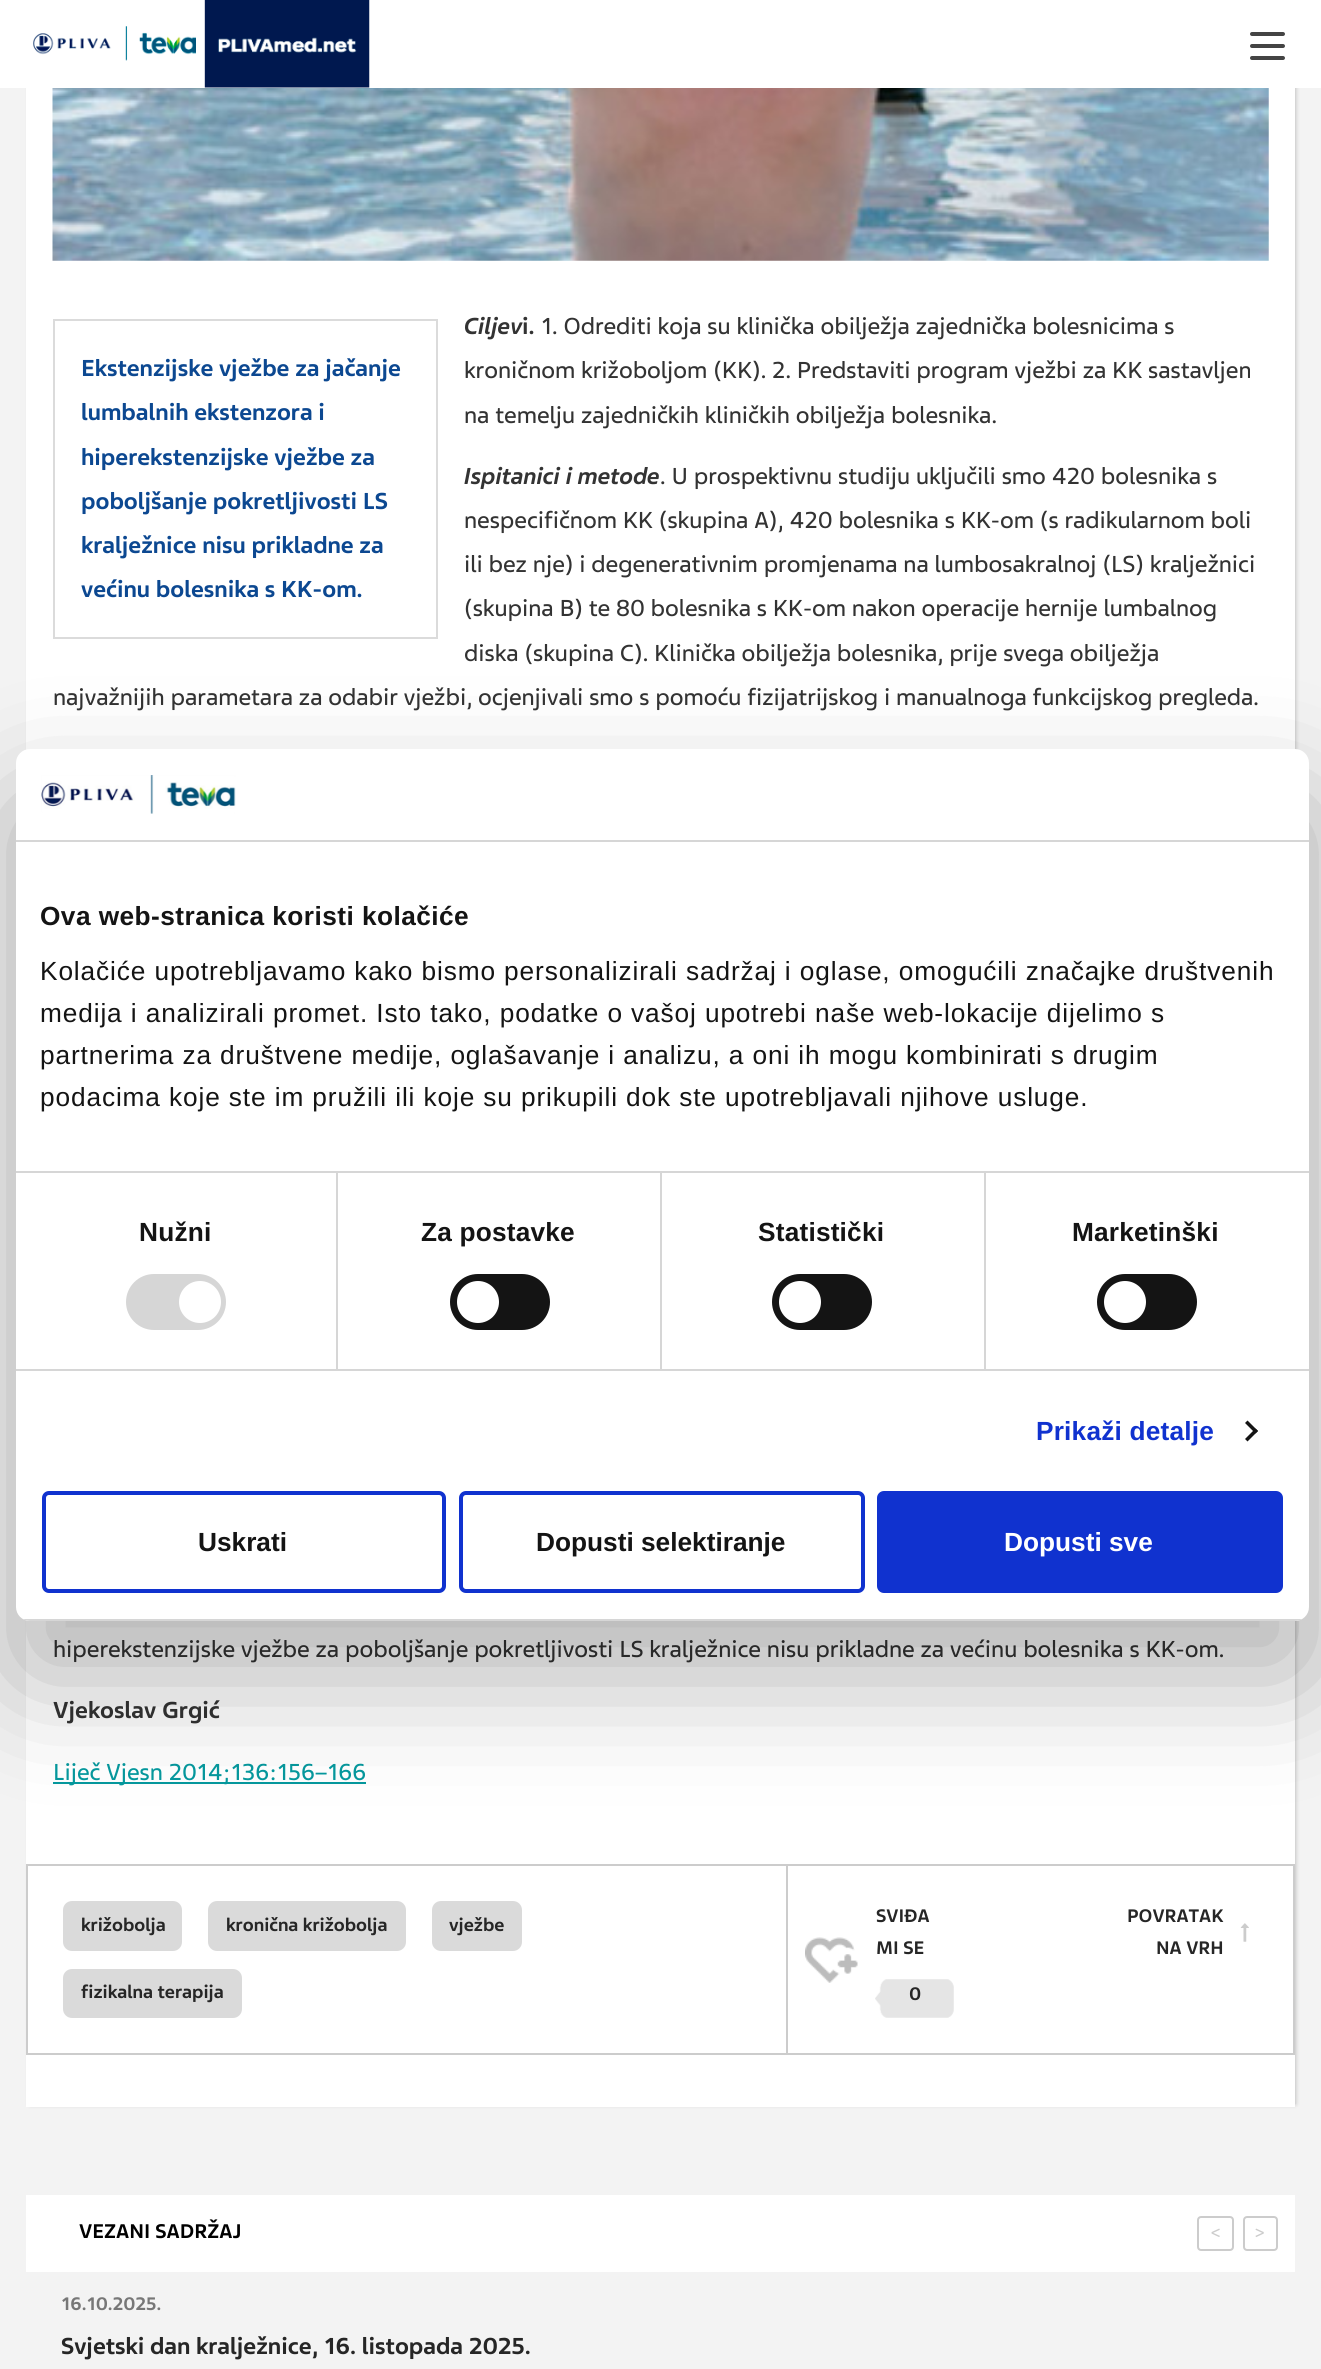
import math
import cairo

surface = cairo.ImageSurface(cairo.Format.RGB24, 1321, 2369)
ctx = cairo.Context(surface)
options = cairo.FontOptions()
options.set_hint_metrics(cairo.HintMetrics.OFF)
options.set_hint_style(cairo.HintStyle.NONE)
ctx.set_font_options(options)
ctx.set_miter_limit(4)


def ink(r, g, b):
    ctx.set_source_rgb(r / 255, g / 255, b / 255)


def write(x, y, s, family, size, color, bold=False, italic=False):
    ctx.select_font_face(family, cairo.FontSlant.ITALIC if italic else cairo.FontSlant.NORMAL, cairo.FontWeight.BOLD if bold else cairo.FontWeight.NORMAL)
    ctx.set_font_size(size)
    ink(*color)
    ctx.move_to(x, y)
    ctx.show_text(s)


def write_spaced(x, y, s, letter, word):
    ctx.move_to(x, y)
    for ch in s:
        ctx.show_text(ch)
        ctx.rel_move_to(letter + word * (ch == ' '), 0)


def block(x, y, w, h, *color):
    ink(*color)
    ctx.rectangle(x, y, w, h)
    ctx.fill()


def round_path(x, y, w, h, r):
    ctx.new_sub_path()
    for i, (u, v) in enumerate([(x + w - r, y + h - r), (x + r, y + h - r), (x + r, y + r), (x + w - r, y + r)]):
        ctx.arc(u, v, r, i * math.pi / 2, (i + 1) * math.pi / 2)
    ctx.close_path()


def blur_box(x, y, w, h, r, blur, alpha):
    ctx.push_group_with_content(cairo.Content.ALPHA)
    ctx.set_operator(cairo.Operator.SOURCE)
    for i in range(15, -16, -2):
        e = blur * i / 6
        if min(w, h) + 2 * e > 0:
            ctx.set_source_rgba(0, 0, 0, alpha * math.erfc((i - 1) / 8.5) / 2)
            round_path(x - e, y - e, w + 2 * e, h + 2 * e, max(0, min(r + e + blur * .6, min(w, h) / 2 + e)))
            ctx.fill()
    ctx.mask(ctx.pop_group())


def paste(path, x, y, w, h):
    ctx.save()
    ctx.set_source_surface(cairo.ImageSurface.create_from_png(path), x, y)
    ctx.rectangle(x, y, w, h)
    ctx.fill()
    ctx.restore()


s1 = dict(family="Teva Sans", size=24.5, color=(12, 72, 145), bold=True)
s2 = dict(family="Teva Sans", size=24.5, color=(51, 51, 51), bold=True, italic=True)
s3 = dict(family="Teva Sans", size=24.5, color=(51, 51, 51), bold=True)
s4 = dict(family="Teva Sans", size=24.5, color=(51, 51, 51))
s5 = dict(family="Teva Sans", size=24.5, color=(5, 153, 158))
s6 = dict(family="Teva Sans", size=19.25, color=(38, 38, 38), bold=True)
s7 = dict(family="Teva Sans", size=21, color=(0, 0, 0), bold=True)
s8 = dict(family="Teva Sans", size=18, color=(204, 204, 204))
s9 = dict(family="Teva Sans", size=19.25, color=(119, 119, 119), bold=True)
s10 = dict(family="Teva Sans", size=24.5, color=(38, 38, 38), bold=True)
s11 = dict(family="Liberation Sans", size=26.25, color=(20, 20, 20), bold=True)
s12 = dict(family="Liberation Sans", size=26.25, color=(255, 255, 255), bold=True)

ink(243, 243, 243)
ctx.paint()
ink(0, 0, 0)
blur_box(30, -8, 1265, 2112, 0, 2.5, 0.3)
block(0, 0, 1321, 88, 255, 255, 255)
paste("pic1.png", 33, 0, 337, 88)
ink(68, 68, 68)
round_path(1250, 32, 35, 4, 2)
ctx.fill()
round_path(1250, 44, 35, 4, 2)
ctx.fill()
round_path(1250, 56, 35, 4, 2)
ctx.fill()
block(26, 88, 1269, 2019, 255, 255, 255)
paste("pic2.png", 52, 88, 1217, 173)
ctx.rectangle(54, 320, 383, 318)
ink(219, 219, 219)
ctx.stroke()
write(81, 376, "Ekstenzijske vježbe za jačanje", **s1)
write(81, 420, "lumbalnih ekstenzora i", **s1)
write(81, 465, "hiperekstenzijske vježbe za", **s1)
write(81, 509, "poboljšanje pokretljivosti LS", **s1)
write(81, 553, "kralježnice nisu prikladne za", **s1)
write(81, 597, "većinu bolesnika s KK-om.", **s1)
write(464, 334, "Ciljev", **s2)
write(522, 334, "i.", **s3)
write(541, 334, "1. Odrediti koja su klinička obilježja zajednička bolesnicima s", **s4)
write(464, 378, "kroničnom križoboljom (KK). 2. Predstaviti program vježbi za KK sastavljen", **s4)
write(464, 423, "na temelju zajedničkih kliničkih obilježja bolesnika.", **s4)
write(464, 484, "Ispitanici i metode", **s2)
write(660, 484, ". U prospektivnu studiju uključili smo 420 bolesnika s", **s4)
write(464, 528, "nespecifičnom KK (skupina A), 420 bolesnika s KK-om (s radikularnom boli", **s4)
write(464, 572, "ili bez nje) i degenerativnim promjenama na lumbosakralnoj (LS) kralježnici", **s4)
write(464, 616, "(skupina B) te 80 bolesnika s KK-om nakon operacije hernije lumbalnog", **s4)
write(464, 661, "diska (skupina C). Klinička obilježja bolesnika, prije svega obilježja", **s4)
write(53, 705, "najvažnijih parametara za odabir vježbi, ocjenjivali smo s pomoću fizijatrijskog i manualnoga funkcijskog pregleda.", **s4)
write(53, 1657, "hiperekstenzijske vježbe za poboljšanje pokretljivosti LS kralježnice nisu prikladne za većinu bolesnika s KK-om.", **s4)
write(53, 1718, "Vjekoslav Grgić", **s3)
block(53, 1782, 313, 2, 5, 153, 158)
write(53, 1780, "Liječ Vjesn 2014;136:156–166", **s5)
block(786, 1864, 509, 2, 204, 204, 204)
block(1293, 1864, 2, 191, 204, 204, 204)
block(786, 2053, 509, 2, 204, 204, 204)
block(786, 1864, 2, 191, 204, 204, 204)
block(26, 1864, 762, 2, 204, 204, 204)
block(26, 2053, 762, 2, 204, 204, 204)
block(26, 1864, 2, 191, 204, 204, 204)
ink(218, 218, 218)
round_path(63, 1901, 119, 50, 9)
ctx.fill()
write(81, 1931, "križobolja", **s6)
ink(218, 218, 218)
round_path(208, 1901, 198, 50, 9)
ctx.fill()
write(226, 1931, "kronična križobolja", **s6)
ink(218, 218, 218)
round_path(432, 1901, 90, 50, 9)
ctx.fill()
write(449, 1931, "vježbe", **s6)
ink(218, 218, 218)
round_path(63, 1969, 179, 49, 9)
ctx.fill()
write(81, 1998, "fizikalna terapija", **s6)
paste("pic3.png", 805, 1937, 53, 46)
write(876, 1922, "SVIĐA", **s6)
write(876, 1954, "MI SE", **s6)
paste("pic4.png", 875, 1979, 79, 39)
write(909, 2000, "0", **s6)
write(1127, 1922, "POVRATAK", **s6)
write(1156, 1954, "NA VRH", **s6)
paste("pic5.png", 1240, 1923, 9, 19)
block(26, 2195, 1269, 77, 255, 255, 255)
write(79, 2238, "VEZANI SADRŽAJ", **s7)
round_path(1198, 2217, 35, 33, 3)
ink(204, 204, 204)
ctx.stroke()
write(1210, 2238, "<", **s8)
round_path(1244, 2217, 33, 33, 3)
ctx.stroke()
write(1254, 2238, ">", **s8)
write(61, 2310, "16.10.2025.", **s9)
write(61, 2354, "Svjetski dan kralježnice, 16. listopada 2025.", **s10)
ink(0, 0, 0)
blur_box(16, 805, 1293, 872, 14, 59.5, 0.3)
ink(255, 255, 255)
round_path(16, 749, 1293, 872, 14)
ctx.fill()
block(16, 840, 1293, 2, 214, 214, 214)
paste("pic6.png", 41, 775, 195, 39)
block(16, 1171, 1293, 2, 214, 214, 214)
ctx.select_font_face("Liberation Sans", cairo.FontSlant.NORMAL, cairo.FontWeight.BOLD)
ctx.set_font_size(26.25)
ink(20, 20, 20)
write_spaced(40, 925, "Ova web-stranica koristi kolačiće", 0.45, 0)
ctx.select_font_face("Liberation Sans")
write_spaced(40, 980, "Kolačiće upotrebljavamo kako bismo personalizirali sadržaj i oglase, omogućili značajke društvenih", 0.88, 0)
write_spaced(40, 1022, "medija i analizirali promet. Isto tako, podatke o vašoj upotrebi naše web-lokacije dijelimo s", 0.88, 0)
write_spaced(40, 1064, "partnerima za društvene medije, oglašavanje i analizu, a oni ih mogu kombinirati s drugim", 0.88, 0)
write_spaced(40, 1106, "podacima koje ste im pružili ili koje su prikupili dok ste upotrebljavali njihove usluge.", 0.88, 0)
block(16, 1369, 1293, 2, 214, 214, 214)
block(336, 1173, 2, 196, 214, 214, 214)
ctx.select_font_face("Liberation Sans", cairo.FontSlant.NORMAL, cairo.FontWeight.BOLD)
ink(20, 20, 20)
write_spaced(139, 1241, "Nužni", 0.2, 0)
ink(214, 214, 214)
round_path(126, 1274, 100, 56, 28)
ctx.fill()
ink(255, 255, 255)
ctx.arc(200, 1302, 21, 0, 2 * math.pi)
ctx.fill()
block(660, 1173, 2, 196, 214, 214, 214)
ink(20, 20, 20)
write_spaced(421, 1241, "Za postavke", 0.2, 0)
round_path(450, 1274, 100, 56, 28)
ctx.fill()
ink(255, 255, 255)
ctx.arc(478, 1302, 21, 0, 2 * math.pi)
ctx.fill()
block(984, 1173, 2, 196, 214, 214, 214)
ink(20, 20, 20)
write_spaced(758, 1241, "Statistički", 0.2, 0)
round_path(772, 1274, 100, 56, 28)
ctx.fill()
ink(255, 255, 255)
ctx.arc(800, 1302, 21, 0, 2 * math.pi)
ctx.fill()
ink(20, 20, 20)
write_spaced(1072, 1241, "Marketinški", 0.2, 0)
round_path(1097, 1274, 100, 56, 28)
ctx.fill()
ink(255, 255, 255)
ctx.arc(1125, 1302, 21, 0, 2 * math.pi)
ctx.fill()
ink(16, 50, 207)
write_spaced(1036, 1440, "Prikaži detalje", 0.2, 0)
ink(20, 20, 20)
ctx.new_path()
ctx.move_to(1247.5, 1420.5)
ctx.line_to(1258, 1431)
ctx.line_to(1255.5, 1433.5)
ctx.line_to(1245, 1423)
ctx.close_path()
ctx.fill()
ctx.new_path()
ctx.move_to(1255.5, 1428.5)
ctx.line_to(1258, 1431)
ctx.line_to(1247.5, 1441.5)
ctx.line_to(1245, 1439)
ctx.close_path()
ctx.fill()
ctx.save()
round_path(16, 749, 1293, 872, 14)
ctx.clip()
block(16, 1619, 1293, 2, 214, 214, 214)
ctx.restore()
round_path(44, 1493, 400, 98, 5)
ink(16, 50, 207)
ctx.set_line_width(4)
ctx.stroke()
write(198, 1551, "Uskrati", **s11)
round_path(461, 1493, 402, 98, 5)
ink(16, 50, 207)
ctx.stroke()
write(536, 1551, "Dopusti selektiranje", **s11)
ink(16, 50, 207)
round_path(879, 1493, 402, 98, 5)
ctx.fill_preserve()
ctx.stroke()
write(1004, 1551, "Dopusti sve", **s12)
surface.write_to_png("screenshot.png")
